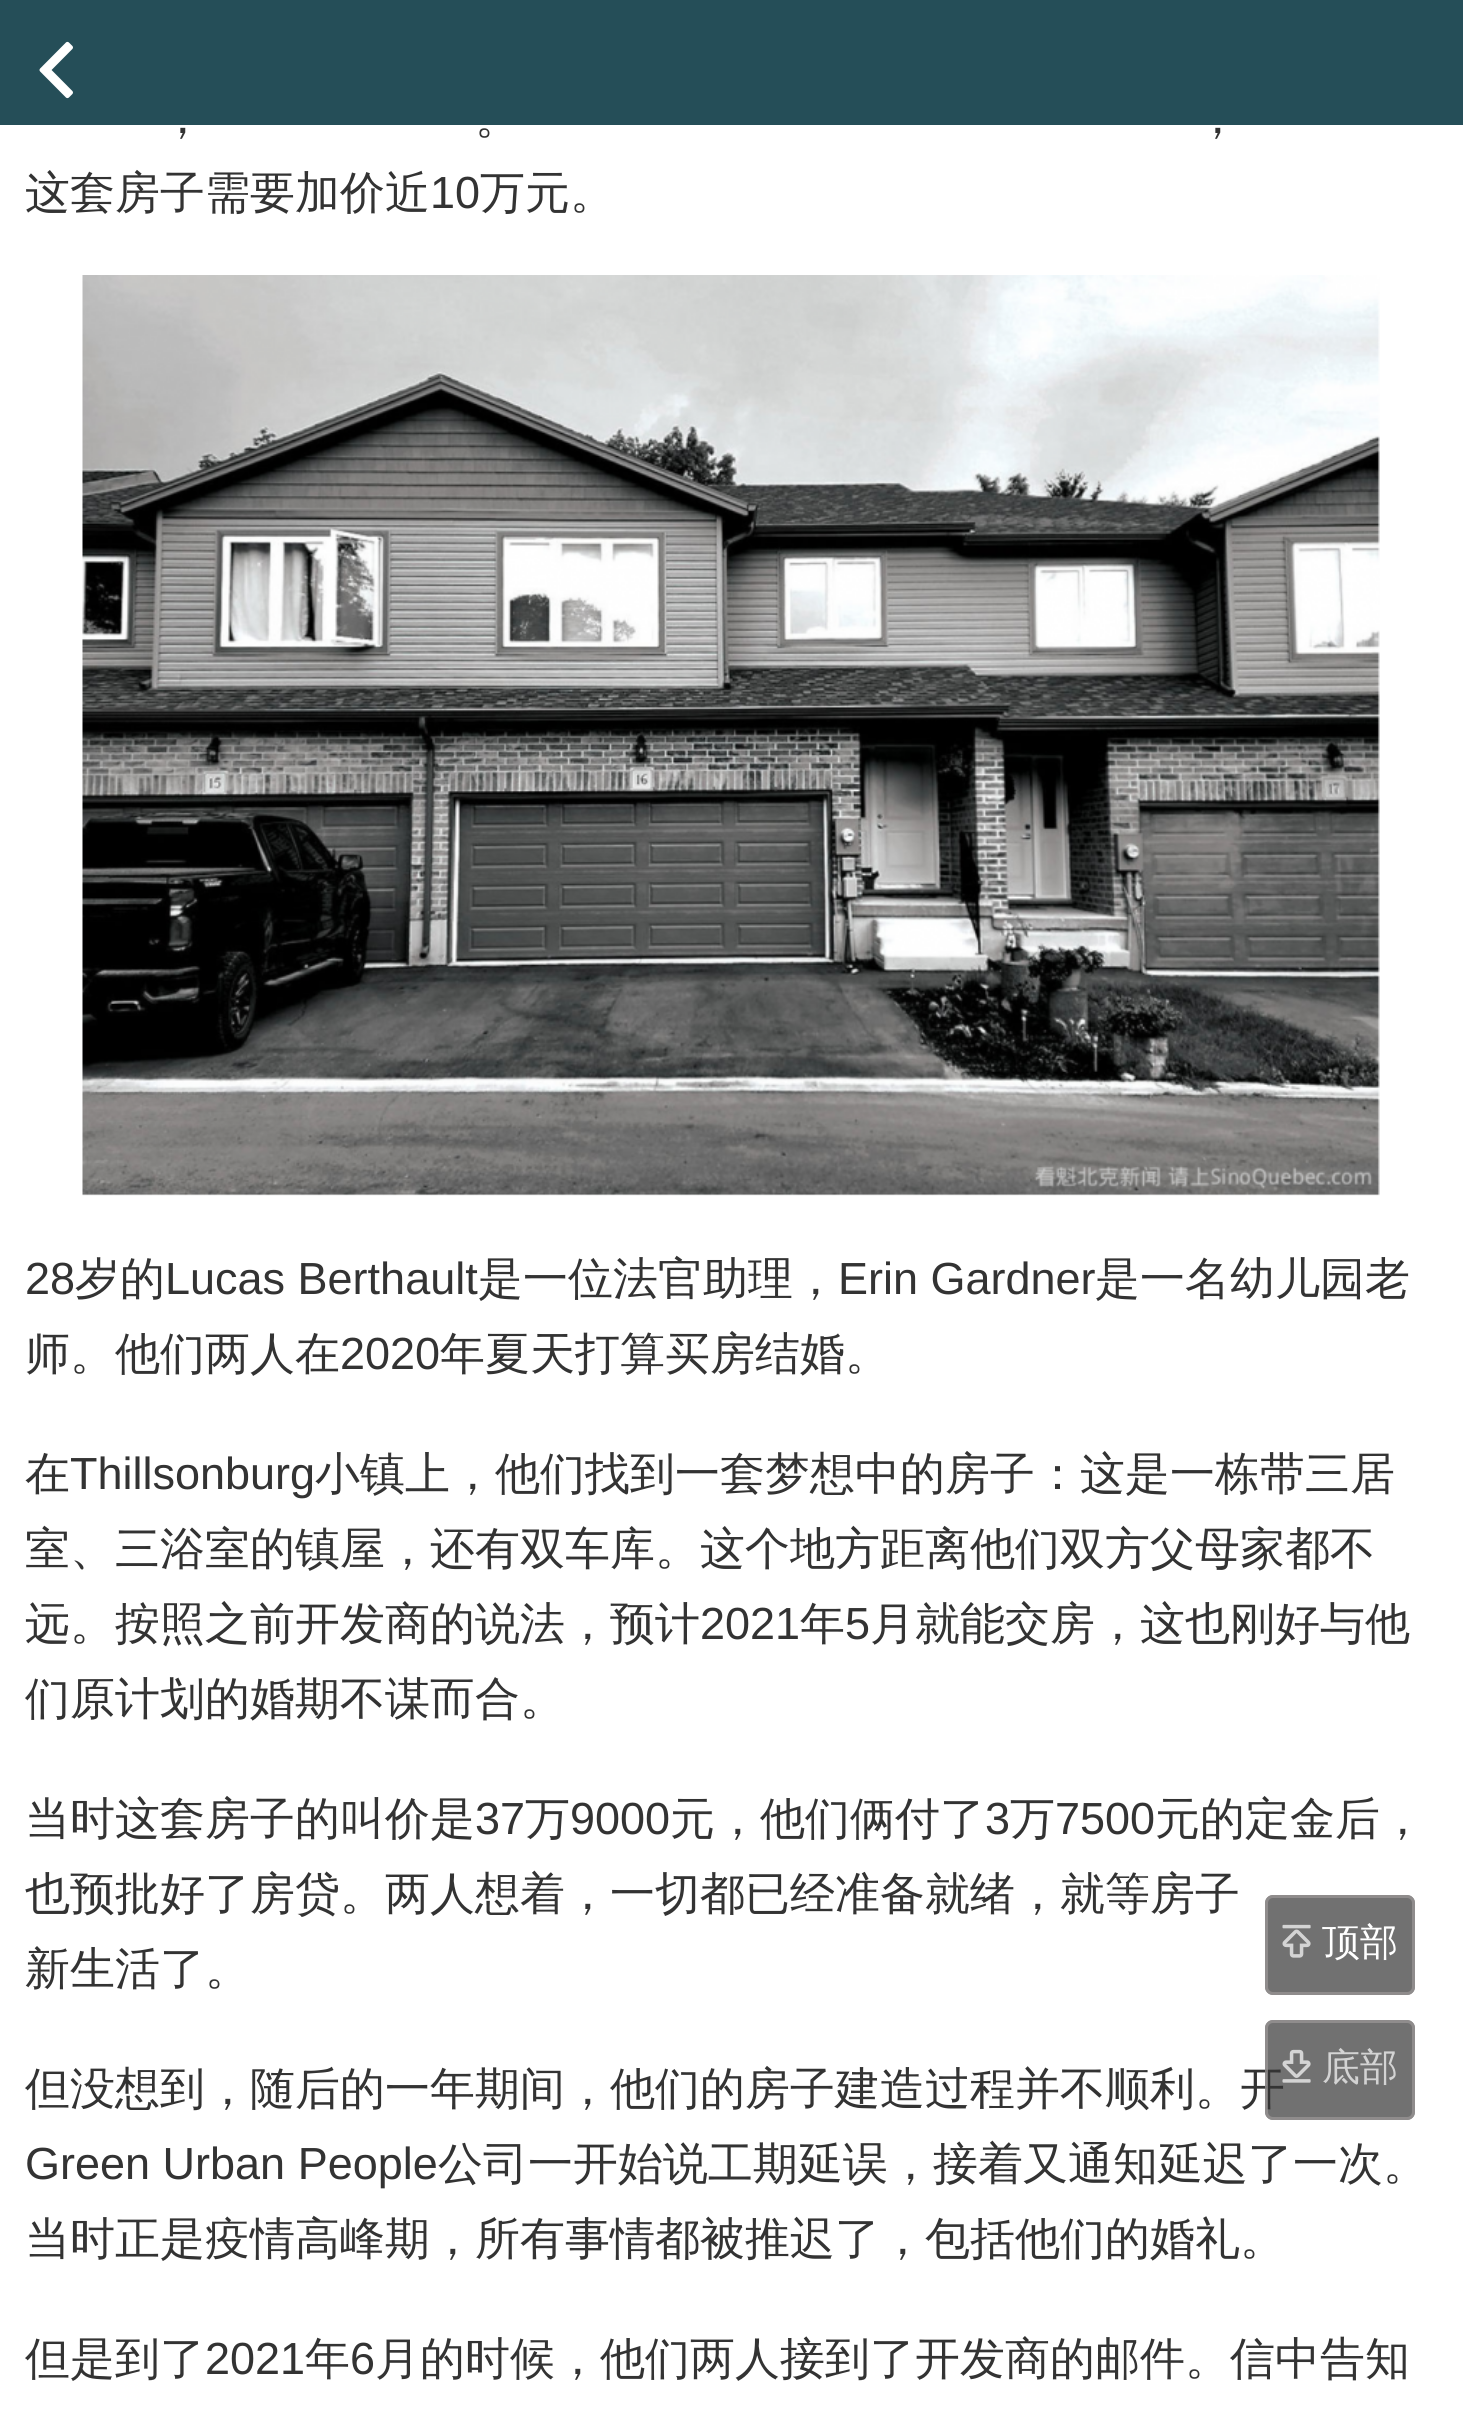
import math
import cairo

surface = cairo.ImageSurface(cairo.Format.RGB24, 1463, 2419)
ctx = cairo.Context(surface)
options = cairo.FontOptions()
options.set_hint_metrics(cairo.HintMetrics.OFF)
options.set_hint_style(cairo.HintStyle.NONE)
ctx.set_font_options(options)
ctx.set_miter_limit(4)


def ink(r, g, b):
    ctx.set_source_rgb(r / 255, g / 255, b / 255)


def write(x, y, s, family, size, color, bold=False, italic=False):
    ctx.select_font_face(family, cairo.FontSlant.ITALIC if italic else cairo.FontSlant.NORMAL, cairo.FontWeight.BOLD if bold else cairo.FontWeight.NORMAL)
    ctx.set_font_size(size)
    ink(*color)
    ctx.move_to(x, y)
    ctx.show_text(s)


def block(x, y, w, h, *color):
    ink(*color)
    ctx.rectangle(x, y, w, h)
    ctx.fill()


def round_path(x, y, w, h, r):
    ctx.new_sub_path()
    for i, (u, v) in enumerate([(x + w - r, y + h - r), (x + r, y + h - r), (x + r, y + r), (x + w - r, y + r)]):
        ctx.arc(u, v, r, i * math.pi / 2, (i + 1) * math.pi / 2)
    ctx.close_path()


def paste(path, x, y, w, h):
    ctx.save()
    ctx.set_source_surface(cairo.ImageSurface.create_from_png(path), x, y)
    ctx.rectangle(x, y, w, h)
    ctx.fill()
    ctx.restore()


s1 = dict(family="WenQuanYi Zen Hei Medium", size=45, color=(51, 51, 51))
s2 = dict(family="Liberation Sans", size=45, color=(51, 51, 51))
s3 = dict(family="WenQuanYi Zen Hei Medium", size=38, color=(255, 255, 255))
s4 = dict(family="WenQuanYi Zen Hei Medium", size=38, color=(211, 211, 211))

ink(255, 255, 255)
ctx.paint()
block(0, 0, 1463, 125, 37, 78, 88)
paste("pic1.png", 39, 41, 34, 58)
write(160, 133, "，", **s1)
write(475, 133, "。", **s1)
write(1195, 133, "，", **s1)
write(25, 208, "这套房子需要加价近", **s1)
write(430, 208, "10", **s2)
write(480, 208, "万元。", **s1)
paste("pic2.png", 82, 275, 1298, 921)
write(25, 1294, "28", **s2)
write(75, 1294, "岁的", **s1)
write(165, 1294, "Lucas Berthault", **s2)
write(478, 1294, "是一位法官助理，", **s1)
write(838, 1294, "Erin Gardner", **s2)
write(1095, 1294, "是一名幼儿园老", **s1)
write(25, 1369, "师。他们两人在", **s1)
write(340, 1369, "2020", **s2)
write(440, 1369, "年夏天打算买房结婚。", **s1)
write(25, 1489, "在", **s1)
write(70, 1489, "Thillsonburg", **s2)
write(315, 1489, "小镇上，他们找到一套梦想中的房子：这是一栋带三居", **s1)
write(25, 1564, "室、三浴室的镇屋，还有双车库。这个地方距离他们双方父母家都不", **s1)
write(25, 1639, "远。按照之前开发商的说法，预计", **s1)
write(700, 1639, "2021", **s2)
write(800, 1639, "年", **s1)
write(845, 1639, "5", **s2)
write(870, 1639, "月就能交房，这也刚好与他", **s1)
write(25, 1714, "们原计划的婚期不谋而合。", **s1)
write(25, 1834, "当时这套房子的叫价是", **s1)
write(475, 1834, "37", **s2)
write(525, 1834, "万", **s1)
write(570, 1834, "9000", **s2)
write(670, 1834, "元，他们俩付了", **s1)
write(985, 1834, "3", **s2)
write(1010, 1834, "万", **s1)
write(1055, 1834, "7500", **s2)
write(1155, 1834, "元的定金后，", **s1)
write(25, 1909, "也预批好了房贷。两人想着，一切都已经准备就绪，就等房子", **s1)
write(25, 1984, "新生活了。", **s1)
write(25, 2104, "但没想到，随后的一年期间，他们的房子建造过程并不顺利。开", **s1)
write(25, 2179, "Green Urban People", **s2)
write(438, 2179, "公司一开始说工期延误，接着又通知延迟了一次。", **s1)
write(25, 2254, "当时正是疫情高峰期，所有事情都被推迟了，包括他们的婚礼。", **s1)
write(25, 2374, "但是到了", **s1)
write(205, 2374, "2021", **s2)
write(305, 2374, "年", **s1)
write(350, 2374, "6", **s2)
write(375, 2374, "月的时候，他们两人接到了开发商的邮件。信中告知", **s1)
ctx.set_source_rgba(0.208, 0.208, 0.208, 0.7)
round_path(1265, 1895, 150, 100, 8)
ctx.fill()
round_path(1266.5, 1896.5, 147, 97, 6.5)
ctx.set_source_rgba(0.612, 0.592, 0.592, 0.7)
ctx.set_line_width(3)
ctx.stroke()
paste("pic3.png", 1282, 1924, 29, 34)
write(1322, 1955, "顶部", **s3)
ctx.set_source_rgba(0.208, 0.208, 0.208, 0.7)
round_path(1265, 2020, 150, 100, 8)
ctx.fill()
round_path(1266.5, 2021.5, 147, 97, 6.5)
ctx.set_source_rgba(0.612, 0.592, 0.592, 0.7)
ctx.stroke()
paste("pic4.png", 1282, 2049, 29, 34)
write(1322, 2080, "底部", **s4)
surface.write_to_png("screenshot.png")
